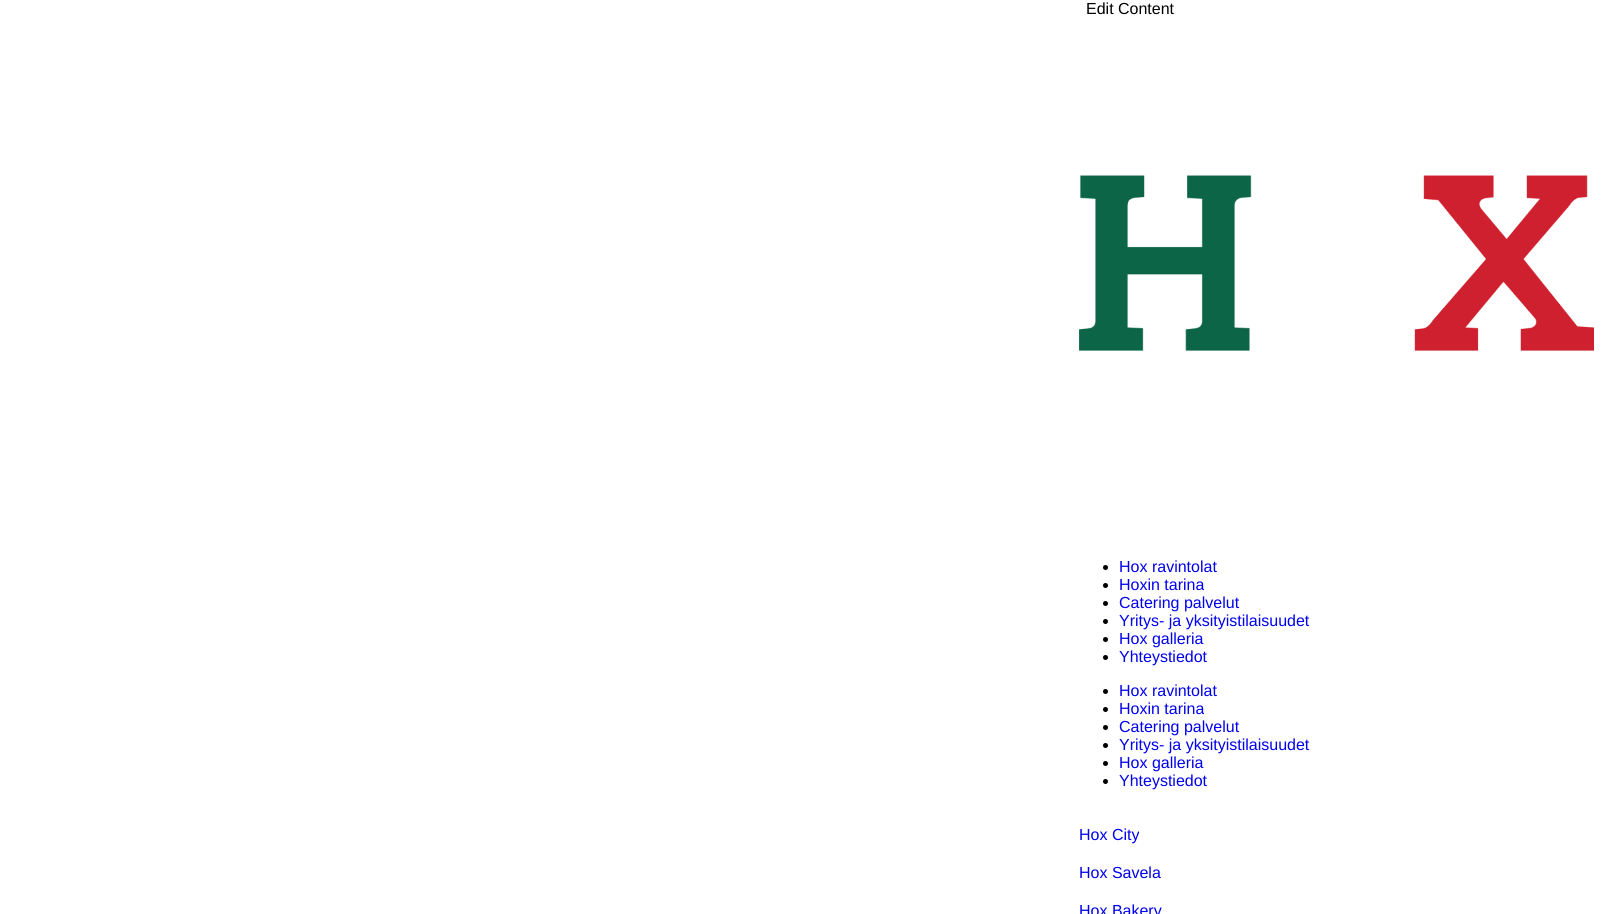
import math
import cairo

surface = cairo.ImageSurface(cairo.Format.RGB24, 1604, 914)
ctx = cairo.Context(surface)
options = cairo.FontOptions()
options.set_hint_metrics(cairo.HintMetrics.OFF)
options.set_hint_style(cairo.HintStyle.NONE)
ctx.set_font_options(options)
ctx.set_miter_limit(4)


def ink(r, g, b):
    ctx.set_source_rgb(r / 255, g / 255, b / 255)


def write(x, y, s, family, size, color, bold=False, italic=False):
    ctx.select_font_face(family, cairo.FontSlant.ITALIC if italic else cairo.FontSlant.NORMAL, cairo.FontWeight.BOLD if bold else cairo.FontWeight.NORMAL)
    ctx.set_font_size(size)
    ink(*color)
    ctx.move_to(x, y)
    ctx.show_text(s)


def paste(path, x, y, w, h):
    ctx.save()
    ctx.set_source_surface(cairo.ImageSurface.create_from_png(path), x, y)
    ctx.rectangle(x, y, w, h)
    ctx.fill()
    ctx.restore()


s1 = dict(family="Liberation Sans", size=16, color=(0, 0, 0))
s2 = dict(family="Liberation Sans", size=16, color=(0, 0, 238))

ink(255, 255, 255)
ctx.paint()
write(1086, 14, "Edit Content", **s1)
paste("pic1.png", 1079, 175, 515, 176)
ctx.arc(1105.5, 567.5, 2.5, 0, 2 * math.pi)
ctx.fill()
write(1119, 572, "Hox ravintolat", **s2)
ink(0, 0, 0)
ctx.new_path()
ctx.arc(1105.5, 585.5, 2.5, 0, 2 * math.pi)
ctx.fill()
write(1119, 590, "Hoxin tarina", **s2)
ink(0, 0, 0)
ctx.new_path()
ctx.arc(1105.5, 603.5, 2.5, 0, 2 * math.pi)
ctx.fill()
write(1119, 608, "Catering palvelut", **s2)
ink(0, 0, 0)
ctx.new_path()
ctx.arc(1105.5, 621.5, 2.5, 0, 2 * math.pi)
ctx.fill()
write(1119, 626, "Yritys- ja yksityistilaisuudet", **s2)
ink(0, 0, 0)
ctx.new_path()
ctx.arc(1105.5, 639.5, 2.5, 0, 2 * math.pi)
ctx.fill()
write(1119, 644, "Hox galleria", **s2)
ink(0, 0, 0)
ctx.new_path()
ctx.arc(1105.5, 657.5, 2.5, 0, 2 * math.pi)
ctx.fill()
write(1119, 662, "Yhteystiedot", **s2)
ink(0, 0, 0)
ctx.new_path()
ctx.arc(1105.5, 691.5, 2.5, 0, 2 * math.pi)
ctx.fill()
write(1119, 696, "Hox ravintolat", **s2)
ink(0, 0, 0)
ctx.new_path()
ctx.arc(1105.5, 709.5, 2.5, 0, 2 * math.pi)
ctx.fill()
write(1119, 714, "Hoxin tarina", **s2)
ink(0, 0, 0)
ctx.new_path()
ctx.arc(1105.5, 727.5, 2.5, 0, 2 * math.pi)
ctx.fill()
write(1119, 732, "Catering palvelut", **s2)
ink(0, 0, 0)
ctx.new_path()
ctx.arc(1105.5, 745.5, 2.5, 0, 2 * math.pi)
ctx.fill()
write(1119, 750, "Yritys- ja yksityistilaisuudet", **s2)
ink(0, 0, 0)
ctx.new_path()
ctx.arc(1105.5, 763.5, 2.5, 0, 2 * math.pi)
ctx.fill()
write(1119, 768, "Hox galleria", **s2)
ink(0, 0, 0)
ctx.new_path()
ctx.arc(1105.5, 781.5, 2.5, 0, 2 * math.pi)
ctx.fill()
write(1119, 786, "Yhteystiedot", **s2)
write(1079, 840, "Hox City", **s2)
write(1079, 878, "Hox Savela", **s2)
write(1079, 916, "Hox Bakery", **s2)
surface.write_to_png("screenshot.png")
